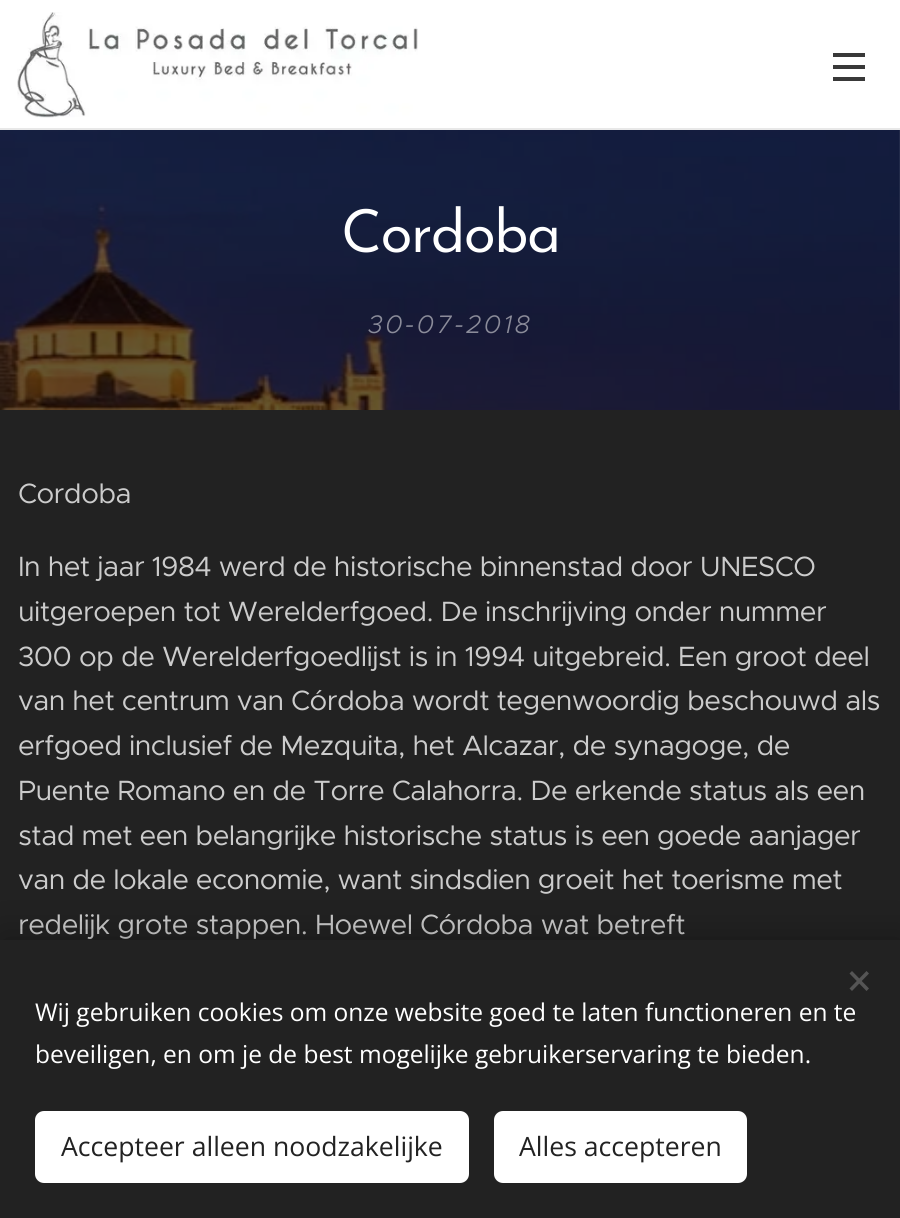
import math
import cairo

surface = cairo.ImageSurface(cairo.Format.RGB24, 900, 1218)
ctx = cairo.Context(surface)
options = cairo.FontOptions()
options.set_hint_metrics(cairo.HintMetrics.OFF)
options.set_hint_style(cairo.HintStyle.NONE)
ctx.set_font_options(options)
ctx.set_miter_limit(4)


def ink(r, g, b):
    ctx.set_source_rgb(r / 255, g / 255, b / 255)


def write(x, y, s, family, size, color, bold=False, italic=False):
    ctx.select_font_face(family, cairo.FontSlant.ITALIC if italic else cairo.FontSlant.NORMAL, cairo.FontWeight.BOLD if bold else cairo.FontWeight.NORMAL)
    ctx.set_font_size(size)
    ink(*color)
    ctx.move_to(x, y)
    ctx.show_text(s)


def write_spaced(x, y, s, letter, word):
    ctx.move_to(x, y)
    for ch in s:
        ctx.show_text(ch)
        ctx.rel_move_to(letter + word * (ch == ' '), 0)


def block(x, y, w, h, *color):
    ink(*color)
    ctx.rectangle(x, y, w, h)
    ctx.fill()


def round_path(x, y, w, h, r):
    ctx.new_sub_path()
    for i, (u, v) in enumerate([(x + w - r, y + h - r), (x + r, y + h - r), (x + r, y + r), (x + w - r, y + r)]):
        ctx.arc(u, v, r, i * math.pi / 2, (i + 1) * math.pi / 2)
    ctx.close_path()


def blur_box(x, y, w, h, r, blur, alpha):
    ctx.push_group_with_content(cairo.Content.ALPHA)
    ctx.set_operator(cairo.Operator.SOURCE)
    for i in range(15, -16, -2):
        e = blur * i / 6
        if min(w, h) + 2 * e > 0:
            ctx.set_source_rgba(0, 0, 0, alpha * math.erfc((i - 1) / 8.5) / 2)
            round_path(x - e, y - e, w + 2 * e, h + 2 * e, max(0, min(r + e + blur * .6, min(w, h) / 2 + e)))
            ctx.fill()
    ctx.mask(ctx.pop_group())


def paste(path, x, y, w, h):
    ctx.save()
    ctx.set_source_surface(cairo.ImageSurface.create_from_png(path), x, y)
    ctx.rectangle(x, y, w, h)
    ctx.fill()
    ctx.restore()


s1 = dict(family="Open Sans", size=24.5, color=(255, 255, 255))
s2 = dict(family="Open Sans", size=26.6, color=(34, 34, 34))

ink(255, 255, 255)
ctx.paint()
paste("pic1.png", 17, 12, 401, 106)
block(833, 65, 32, 4, 57, 57, 57)
block(833, 53, 32, 4, 57, 57, 57)
block(833, 77, 32, 4, 57, 57, 57)
block(0, 128, 900, 2, 232, 232, 232)
paste("pic2.png", 0, 130, 900, 280)
ctx.select_font_face("Josefin Sans")
ctx.set_font_size(59.5)
ink(255, 255, 255)
write_spaced(341, 252, "Cordoba", -1.75, 0)
ctx.select_font_face("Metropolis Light", cairo.FontSlant.ITALIC)
ctx.set_font_size(25.5)
ink(139, 140, 154)
write_spaced(368, 333, "30-07-2018", 2.5, 0)
block(0, 410, 900, 530, 34, 34, 34)
ctx.select_font_face("Metropolis")
ctx.set_font_size(28)
ink(204, 204, 204)
write_spaced(18, 503, "Cordoba", -0.55, 0)
write_spaced(18, 576, "In het jaar 1984 werd de historische binnenstad door UNESCO", -0.55, 0)
write_spaced(18, 621, "uitgeroepen tot Werelderfgoed. De inschrijving onder nummer", -0.55, 0)
write_spaced(18, 666, "300 op de Werelderfgoedlijst is in 1994 uitgebreid. Een groot deel", -0.55, 0)
write_spaced(18, 710, "van het centrum van Córdoba wordt tegenwoordig beschouwd als", -0.55, 0)
write_spaced(18, 755, "erfgoed inclusief de Mezquita, het Alcazar, de synagoge, de", -0.55, 0)
write_spaced(18, 800, "Puente Romano en de Torre Calahorra. De erkende status als een", -0.55, 0)
write_spaced(18, 845, "stad met een belangrijke historische status is een goede aanjager", -0.55, 0)
write_spaced(18, 889, "van de lokale economie, want sindsdien groeit het toerisme met", -0.55, 0)
write_spaced(18, 934, "redelijk grote stappen. Hoewel Córdoba wat betreft", -0.55, 0)
ink(0, 0, 0)
blur_box(0, 940, 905, 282, 0, 22, 0.33)
block(0, 940, 900, 278, 34, 34, 34)
ink(85, 85, 85)
ctx.new_path()
ctx.move_to(849.5, 988.5)
ctx.line_to(866.5, 971)
ctx.line_to(869, 973.5)
ctx.line_to(852, 991)
ctx.close_path()
ctx.fill()
ctx.new_path()
ctx.move_to(852, 971)
ctx.line_to(869, 988.5)
ctx.line_to(866.5, 991)
ctx.line_to(849.5, 973.5)
ctx.close_path()
ctx.fill()
write(35, 1021, "Wij gebruiken cookies om onze website goed te laten functioneren en te", **s1)
write(35, 1063, "beveiligen, en om je de best mogelijke gebruikerservaring te bieden.", **s1)
round_path(35, 1111, 434, 72, 9)
ctx.fill()
write(61, 1156, "Accepteer alleen noodzakelijke", **s2)
ink(255, 255, 255)
round_path(494, 1111, 253, 72, 9)
ctx.fill()
write(519, 1156, "Alles accepteren", **s2)
surface.write_to_png("screenshot.png")
